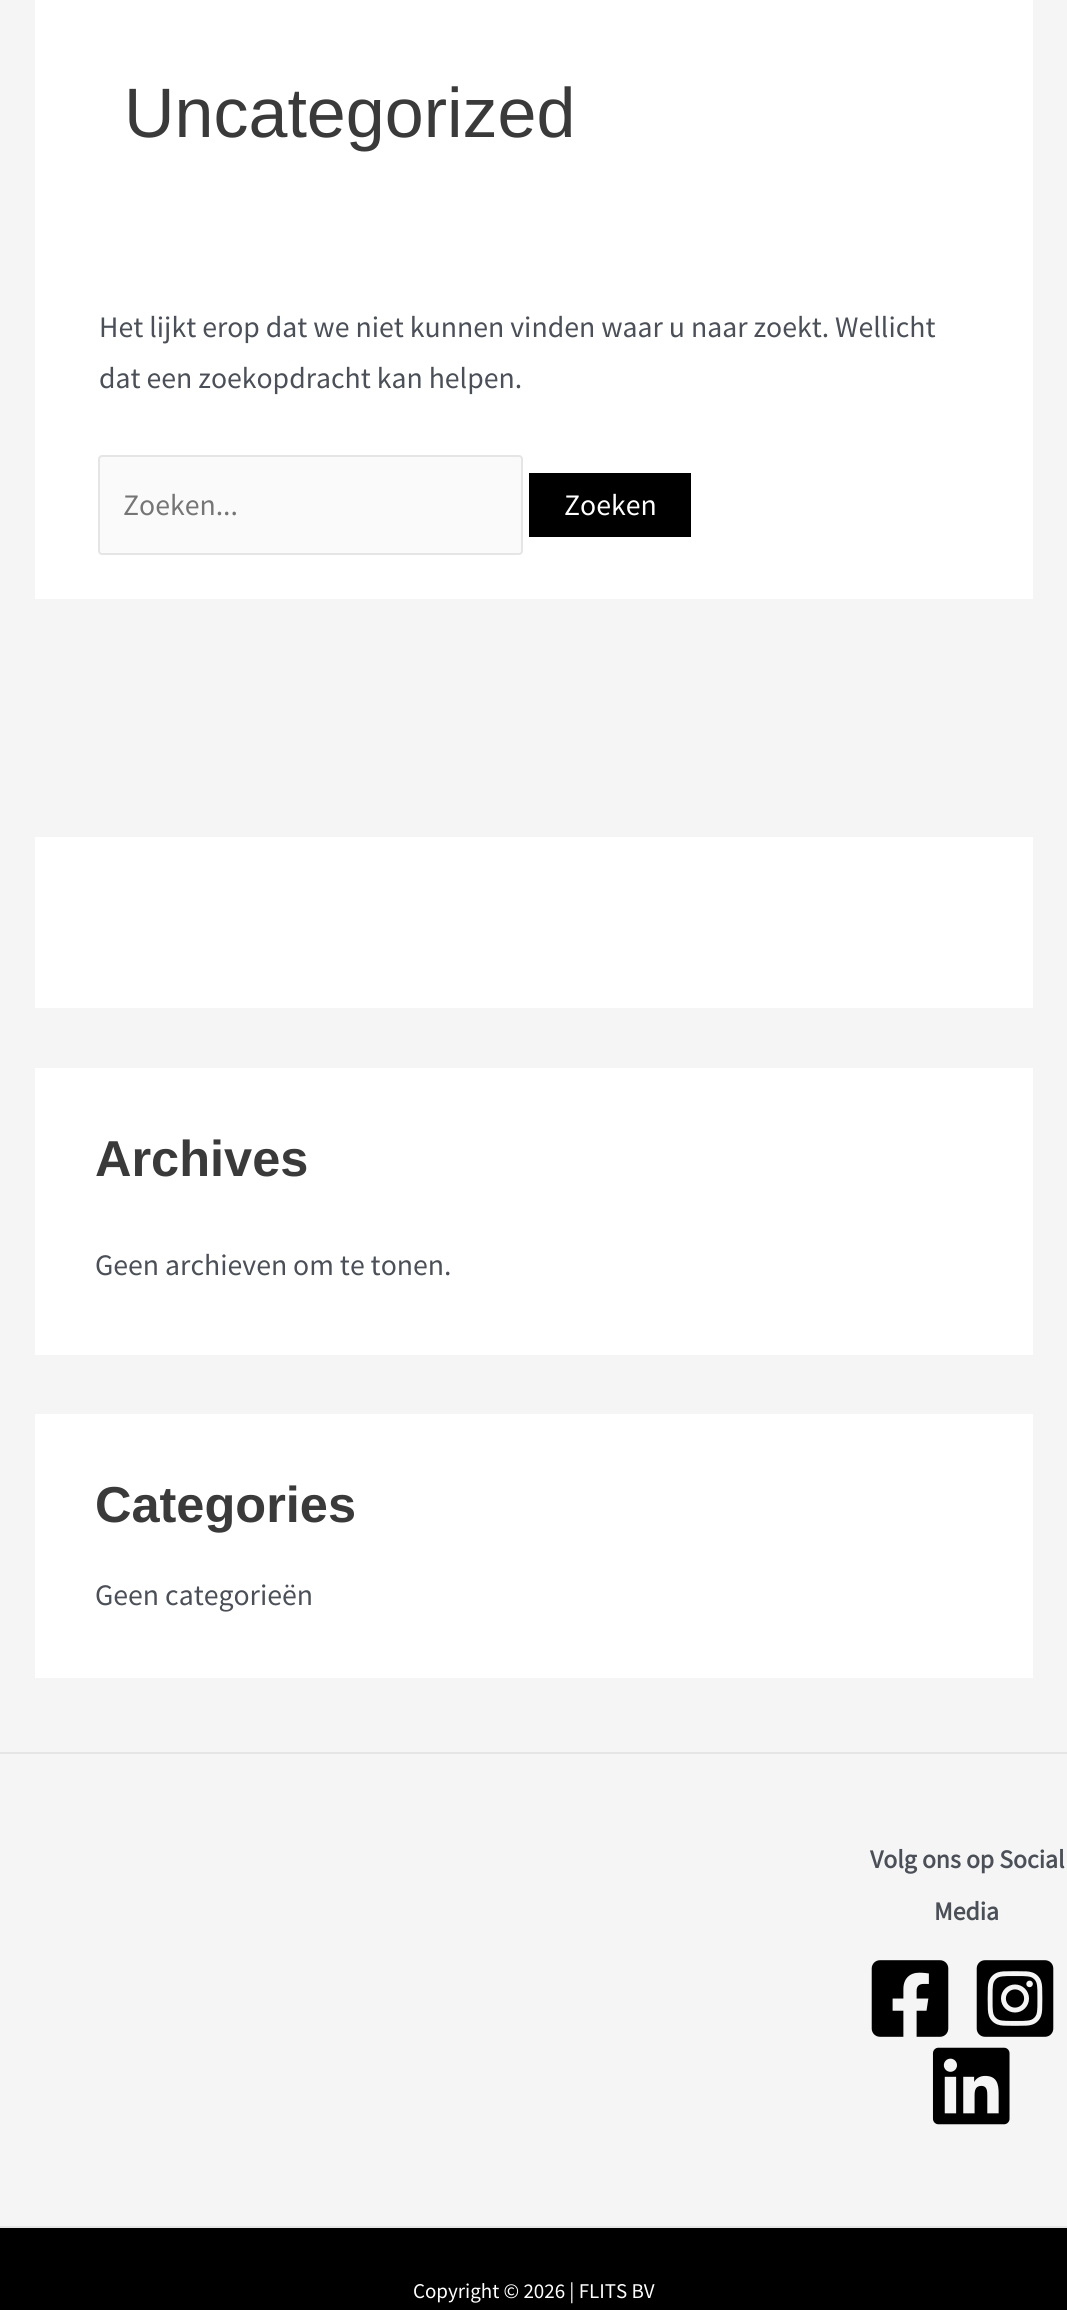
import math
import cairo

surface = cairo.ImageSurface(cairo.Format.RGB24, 1067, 2310)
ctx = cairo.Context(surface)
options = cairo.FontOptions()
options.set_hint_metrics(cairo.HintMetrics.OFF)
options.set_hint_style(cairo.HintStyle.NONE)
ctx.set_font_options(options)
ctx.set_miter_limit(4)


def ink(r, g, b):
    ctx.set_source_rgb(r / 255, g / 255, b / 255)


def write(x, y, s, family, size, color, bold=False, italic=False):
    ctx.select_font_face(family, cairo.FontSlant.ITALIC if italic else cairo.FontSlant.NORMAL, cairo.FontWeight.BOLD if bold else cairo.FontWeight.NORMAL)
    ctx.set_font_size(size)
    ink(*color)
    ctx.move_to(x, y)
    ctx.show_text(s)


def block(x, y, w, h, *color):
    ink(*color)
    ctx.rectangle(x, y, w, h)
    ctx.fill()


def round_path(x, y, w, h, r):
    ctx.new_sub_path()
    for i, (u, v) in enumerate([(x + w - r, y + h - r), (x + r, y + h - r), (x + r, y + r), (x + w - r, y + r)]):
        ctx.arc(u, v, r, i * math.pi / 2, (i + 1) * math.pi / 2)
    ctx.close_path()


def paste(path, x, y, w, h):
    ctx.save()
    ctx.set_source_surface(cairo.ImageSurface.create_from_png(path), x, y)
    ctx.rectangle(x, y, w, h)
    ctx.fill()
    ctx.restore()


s1 = dict(family="Liberation Sans", size=70, color=(58, 58, 58))
s2 = dict(family="Source Sans Pro", size=29.75, color=(75, 79, 88))
s3 = dict(family="Source Sans Pro", size=29.75, color=(117, 117, 117))
s4 = dict(family="Source Sans Pro", size=29.75, color=(255, 255, 255))
s5 = dict(family="Liberation Sans", size=50.5, color=(58, 58, 58), bold=True)
s6 = dict(family="Source Sans Pro", size=25.75, color=(75, 79, 88), bold=True)
s7 = dict(family="Source Sans Pro", size=21, color=(255, 255, 255))

ink(245, 245, 245)
ctx.paint()
block(35, 0, 998, 599, 255, 255, 255)
write(124, 137, "Uncategorized", **s1)
write(99, 337, "Het lijkt erop dat we niet kunnen vinden waar u naar zoekt. Wellicht", **s2)
write(99, 388, "dat een zoekopdracht kan helpen.", **s2)
ink(250, 250, 250)
round_path(99, 456, 423, 98, 3)
ctx.fill_preserve()
ink(229, 229, 229)
ctx.stroke()
write(123, 515, "Zoeken...", **s3)
block(529, 473, 162, 64, 0, 0, 0)
write(564, 515, "Zoeken", **s4)
block(35, 837, 998, 171, 255, 255, 255)
block(35, 1068, 998, 287, 255, 255, 255)
write(95, 1176, "Archives", **s5)
write(95, 1275, "Geen archieven om te tonen.", **s2)
block(35, 1414, 998, 264, 255, 255, 255)
write(95, 1522, "Categories", **s5)
write(95, 1605, "Geen categorieën", **s2)
block(0, 1752, 1067, 2, 229, 229, 229)
write(870, 1868, "Volg ons op Social", **s6)
write(934, 1920, "Media", **s6)
paste("pic1.png", 871, 1960, 78, 77)
paste("pic2.png", 976, 1960, 78, 77)
paste("pic3.png", 932, 2047, 78, 78)
block(0, 2228, 1067, 82, 0, 0, 0)
block(0, 2226, 1067, 2, 229, 229, 229)
write(413, 2298, "Copyright © 2026 | FLITS BV", **s7)
surface.write_to_png("screenshot.png")
